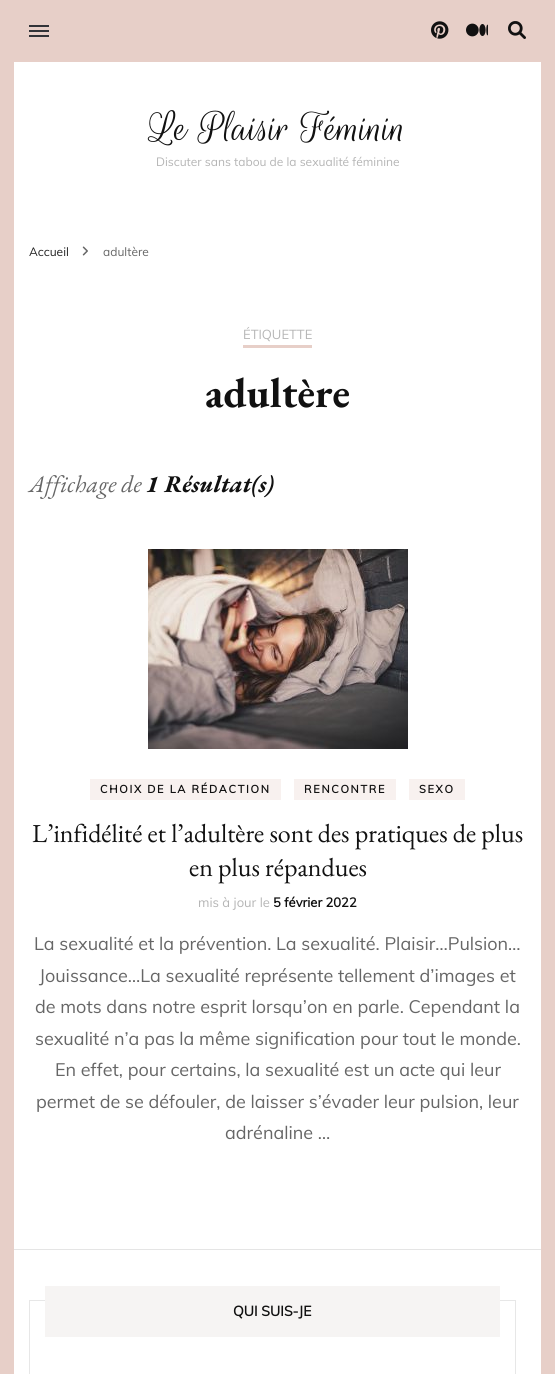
import math
import cairo

surface = cairo.ImageSurface(cairo.Format.RGB24, 555, 1374)
ctx = cairo.Context(surface)
options = cairo.FontOptions()
options.set_hint_metrics(cairo.HintMetrics.OFF)
options.set_hint_style(cairo.HintStyle.NONE)
ctx.set_font_options(options)
ctx.set_miter_limit(4)


def ink(r, g, b):
    ctx.set_source_rgb(r / 255, g / 255, b / 255)


def write(x, y, s, family, size, color, bold=False, italic=False):
    ctx.select_font_face(family, cairo.FontSlant.ITALIC if italic else cairo.FontSlant.NORMAL, cairo.FontWeight.BOLD if bold else cairo.FontWeight.NORMAL)
    ctx.set_font_size(size)
    ink(*color)
    ctx.move_to(x, y)
    ctx.show_text(s)


def write_spaced(x, y, s, letter, word):
    ctx.move_to(x, y)
    for ch in s:
        ctx.show_text(ch)
        ctx.rel_move_to(letter + word * (ch == ' '), 0)


def block(x, y, w, h, *color):
    ink(*color)
    ctx.rectangle(x, y, w, h)
    ctx.fill()


def paste(path, x, y, w, h):
    ctx.save()
    ctx.set_source_surface(cairo.ImageSurface.create_from_png(path), x, y)
    ctx.rectangle(x, y, w, h)
    ctx.fill()
    ctx.restore()


s1 = dict(family="Rouge Script", size=45, color=(17, 17, 17))
s2 = dict(family="Muli", size=12, color=(181, 181, 181))
s3 = dict(family="Muli", size=12, color=(34, 34, 34))
s4 = dict(family="Muli", size=12, color=(102, 102, 102))
s5 = dict(family="Muli", size=13, color=(181, 181, 181))
s6 = dict(family="EB Garamond", size=42, color=(17, 17, 17), bold=True)
s7 = dict(family="EB Garamond", size=24, color=(102, 102, 102), italic=True)
s8 = dict(family="EB Garamond", size=24, color=(17, 17, 17), bold=True, italic=True)
s9 = dict(family="EB Garamond", size=26, color=(17, 17, 17))
s10 = dict(family="Muli", size=13, color=(17, 17, 17), bold=True)
s11 = dict(family="Muli", size=18, color=(102, 102, 102))
s12 = dict(family="Muli", size=14, color=(17, 17, 17), bold=True)

ink(231, 207, 200)
ctx.paint()
block(14, 62, 527, 1312, 255, 255, 255)
block(29, 30, 20, 2, 50, 51, 56)
block(29, 25, 20, 2, 50, 51, 56)
block(29, 35, 20, 2, 50, 51, 56)
paste("pic1.png", 431, 21, 18, 18)
paste("pic2.png", 466, 23, 22, 14)
paste("pic3.png", 508, 21, 18, 18)
write(149, 140, "Le Plaisir Féminin", **s1)
write(156, 166, "Discuter sans tabou de la sexualité féminine", **s2)
write(29, 256, "Accueil", **s3)
paste("pic4.png", 82, 246, 6, 10)
write(103, 256, "adultère", **s4)
block(243, 345, 69, 3, 231, 207, 200)
write(243, 339, "ÉTIQUETTE", **s5)
write(205, 407, "adultère", **s6)
write(29, 492, "Affichage de", **s7)
write(146, 492, "1 Résultat(s)", **s8)
paste("pic5.png", 148, 549, 260, 200)
block(90, 779, 191, 21, 248, 241, 239)
ctx.select_font_face("Muli", cairo.FontSlant.NORMAL, cairo.FontWeight.BOLD)
ctx.set_font_size(11)
ink(17, 17, 17)
write_spaced(100, 793, "CHOIX DE LA RÉDACTION", 1.65, 0)
block(294, 779, 102, 21, 248, 241, 239)
ink(17, 17, 17)
write_spaced(304, 793, "RENCONTRE", 1.65, 0)
block(409, 779, 56, 21, 248, 241, 239)
ink(17, 17, 17)
write_spaced(419, 793, "SEXO", 1.65, 0)
write(32, 842, "L’infidélité et l’adultère sont des pratiques de plus", **s9)
write(189, 876, "en plus répandues", **s9)
write(198, 907, "mis à jour le", **s5)
write(273, 907, "5 février 2022", **s10)
write(34, 950, "La sexualité et la prévention. La sexualité. Plaisir…Pulsion…", **s11)
write(39, 982, "Jouissance…La sexualité représente tellement d’images et", **s11)
write(35, 1013, "de mots dans notre esprit lorsqu’on en parle. Cependant la", **s11)
write(35, 1045, "sexualité n’a pas la même signification pour tout le monde.", **s11)
write(55, 1076, "En effet, pour certains, la sexualité est un acte qui leur", **s11)
write(36, 1108, "permet de se défouler, de laisser s’évader leur pulsion, leur", **s11)
write(225, 1139, "adrénaline …", **s11)
block(14, 1249, 527, 1, 229, 229, 229)
ctx.rectangle(29.5, 1300.5, 486, 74)
ink(231, 231, 231)
ctx.set_line_width(1)
ctx.stroke()
block(45, 1286, 455, 51, 246, 244, 243)
write(233, 1316, "QUI SUIS-JE", **s12)
surface.write_to_png("screenshot.png")
